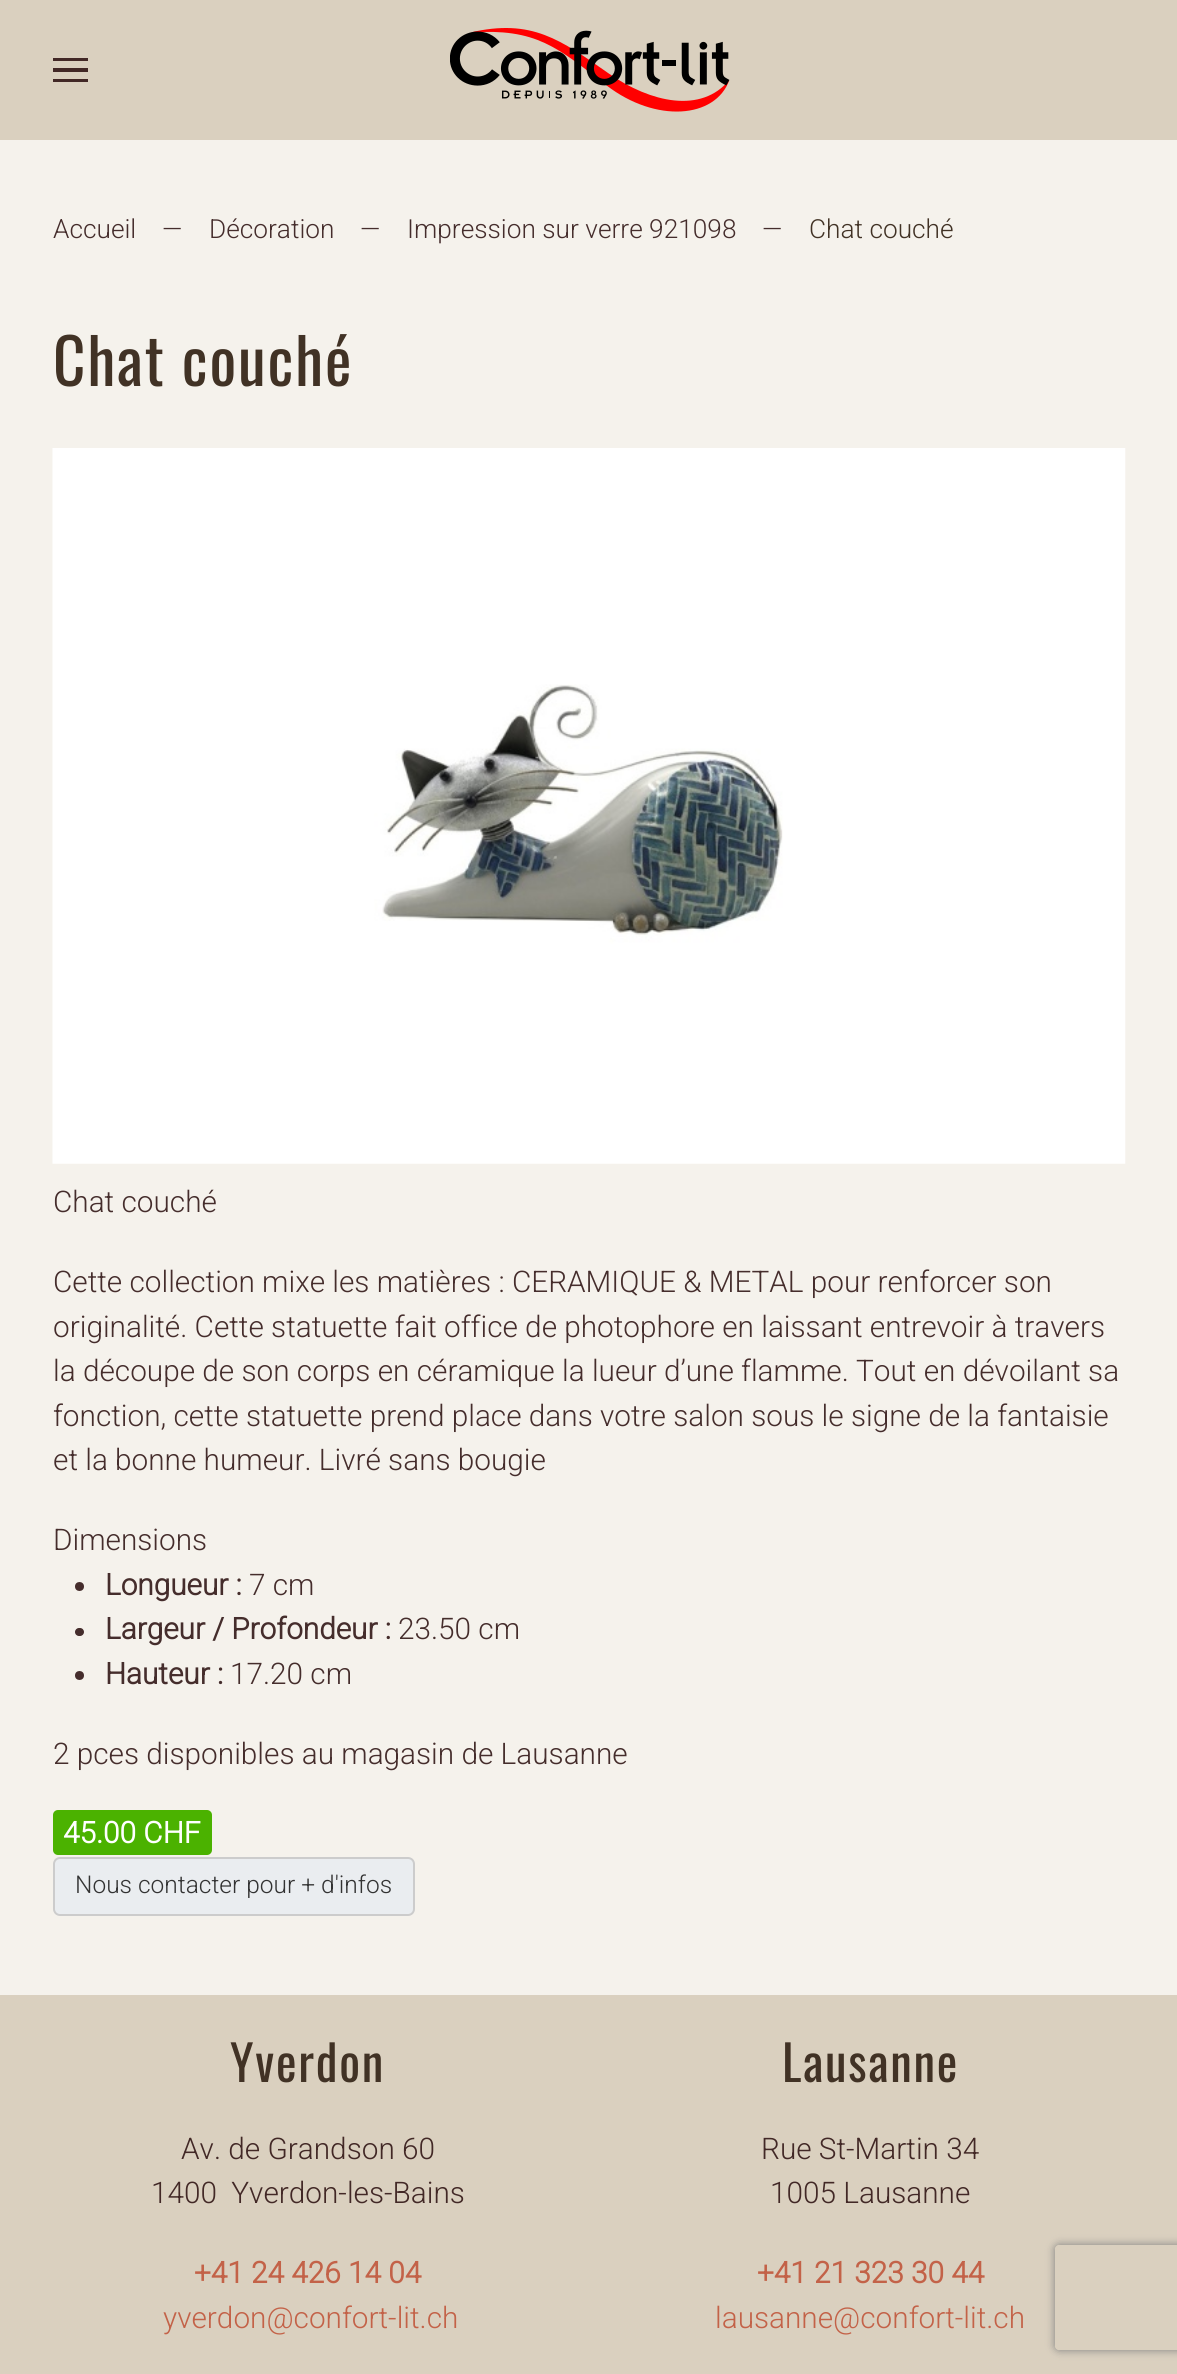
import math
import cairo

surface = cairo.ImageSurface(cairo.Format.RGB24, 1177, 2374)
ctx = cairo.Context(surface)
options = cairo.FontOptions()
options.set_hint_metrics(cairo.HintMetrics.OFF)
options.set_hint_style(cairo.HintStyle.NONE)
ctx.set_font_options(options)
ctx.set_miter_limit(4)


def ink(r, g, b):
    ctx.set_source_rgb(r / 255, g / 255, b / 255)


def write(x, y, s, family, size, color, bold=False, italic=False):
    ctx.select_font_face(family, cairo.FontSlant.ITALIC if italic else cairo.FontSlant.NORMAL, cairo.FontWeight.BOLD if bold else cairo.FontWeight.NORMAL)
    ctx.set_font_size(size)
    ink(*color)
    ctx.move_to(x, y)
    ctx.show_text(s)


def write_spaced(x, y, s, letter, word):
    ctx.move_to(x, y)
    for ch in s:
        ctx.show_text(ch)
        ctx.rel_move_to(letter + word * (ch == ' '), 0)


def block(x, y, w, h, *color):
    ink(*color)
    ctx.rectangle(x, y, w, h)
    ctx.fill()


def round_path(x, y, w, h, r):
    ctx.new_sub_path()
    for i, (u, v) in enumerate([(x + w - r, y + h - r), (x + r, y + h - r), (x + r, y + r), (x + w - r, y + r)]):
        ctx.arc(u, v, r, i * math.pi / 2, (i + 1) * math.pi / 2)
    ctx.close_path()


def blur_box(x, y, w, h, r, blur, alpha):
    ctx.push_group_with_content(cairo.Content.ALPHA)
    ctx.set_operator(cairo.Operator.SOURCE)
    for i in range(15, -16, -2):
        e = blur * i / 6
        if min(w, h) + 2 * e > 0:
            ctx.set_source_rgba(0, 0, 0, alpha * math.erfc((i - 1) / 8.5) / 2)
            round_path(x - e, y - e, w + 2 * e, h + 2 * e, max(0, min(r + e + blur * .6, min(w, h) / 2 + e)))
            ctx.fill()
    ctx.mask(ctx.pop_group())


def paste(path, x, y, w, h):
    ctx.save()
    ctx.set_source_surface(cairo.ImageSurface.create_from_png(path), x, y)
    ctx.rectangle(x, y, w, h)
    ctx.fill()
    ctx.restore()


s1 = dict(family="Roboto Light", size=26.25, color=(69, 45, 44))
s2 = dict(family="Roboto Light", size=26.25, color=(65, 50, 37))
s3 = dict(family="Roboto Light", size=29.75, color=(69, 45, 44))
s4 = dict(family="Roboto", size=29.75, color=(69, 45, 44), bold=True)
s5 = dict(family="Roboto", size=29.75, color=(255, 255, 255), bold=True)
s6 = dict(family="Roboto Light", size=24.5, color=(51, 51, 51))
s7 = dict(family="Roboto Light", size=29.75, color=(66, 40, 38))
s8 = dict(family="Roboto", size=29.75, color=(195, 98, 72), bold=True)
s9 = dict(family="Roboto Light", size=29.75, color=(195, 98, 72))

ink(245, 242, 236)
ctx.paint()
block(0, 0, 1177, 140, 218, 208, 191)
block(53, 58, 35, 3, 66, 40, 38)
block(53, 68, 35, 4, 66, 40, 38)
block(53, 79, 35, 3, 66, 40, 38)
paste("pic1.png", 450, 28, 280, 84)
write(53, 238, "Accueil", **s1)
write(162, 238, "—", **s1)
write(209, 238, "Décoration", **s1)
write(360, 238, "—", **s1)
write(407, 238, "Impression sur verre 921098", **s1)
write(762, 238, "—", **s1)
write(809, 238, "Chat couché", **s2)
ctx.select_font_face("Oswald")
ctx.set_font_size(63)
write_spaced(53, 386, "Chat couché", 1.75, 0)
paste("pic2.png", 52, 448, 1074, 716)
write(53, 1212, "Chat couché", **s3)
write(53, 1292, "Cette collection mixe les matières : CERAMIQUE & METAL pour renforcer son", **s3)
write(53, 1337, "originalité. Cette statuette fait office de photophore en laissant entrevoir à travers", **s3)
write(53, 1381, "la découpe de son corps en céramique la lueur d’une flamme. Tout en dévoilant sa", **s3)
write(53, 1426, "fonction, cette statuette prend place dans votre salon sous le signe de la fantaisie", **s3)
write(53, 1470, "et la bonne humeur. Livré sans bougie", **s3)
write(53, 1550, "Dimensions", **s3)
ctx.new_path()
ctx.arc(79.5, 1586.5, 4.5, 0, 2 * math.pi)
ctx.fill()
write(105, 1595, "Longueur :", **s4)
write(249, 1595, "7 cm", **s3)
round_path(75, 1628, 9, 8, 4)
ctx.fill()
write(105, 1639, "Largeur / Profondeur :", **s4)
write(398, 1639, "23.50 cm", **s3)
ctx.new_path()
ctx.arc(79.5, 1675.5, 4.5, 0, 2 * math.pi)
ctx.fill()
write(105, 1684, "Hauteur :", **s4)
write(230, 1684, "17.20 cm", **s3)
write(53, 1764, "2 pces disponibles au magasin de Lausanne", **s3)
ink(75, 178, 0)
round_path(53, 1810, 159, 45, 5)
ctx.fill()
write(63, 1843, "45.00 CHF", **s5)
ink(234, 237, 240)
round_path(54, 1858, 360, 57, 6)
ctx.fill_preserve()
ink(204, 204, 204)
ctx.stroke()
write(75, 1893, "Nous contacter pour + d'infos", **s6)
block(0, 1995, 1177, 379, 218, 208, 191)
ctx.select_font_face("Oswald")
ctx.set_font_size(49)
ink(65, 50, 37)
write_spaced(230, 2082, "Yverdon", 1.75, 0)
write(181, 2159, "Av. de Grandson 60", **s7)
write_spaced(151, 2203, "1400 Yverdon-les-Bains", 0, 7)
write(194, 2283, "+41 24 426 14 04", **s8)
write(163, 2328, "yverdon@confort-lit.ch", **s9)
ctx.select_font_face("Oswald")
ctx.set_font_size(49)
ink(65, 50, 37)
write_spaced(782, 2082, "Lausanne", 1.75, 0)
write(761, 2159, "Rue St-Martin 34", **s7)
write(770, 2203, "1005 Lausanne", **s7)
write(757, 2283, "+41 21 323 30 44", **s8)
write(715, 2328, "lausanne@confort-lit.ch", **s9)
ctx.save()
ctx.set_fill_rule(cairo.FillRule.EVEN_ODD)
ctx.new_path()
ctx.move_to(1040, 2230)
ctx.line_to(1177, 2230)
ctx.line_to(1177, 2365)
ctx.line_to(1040, 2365)
ctx.close_path()
ctx.move_to(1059, 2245)
ctx.line_to(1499, 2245)
ctx.curve_to(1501, 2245, 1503, 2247, 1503, 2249)
ctx.line_to(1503, 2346)
ctx.curve_to(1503, 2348, 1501, 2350, 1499, 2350)
ctx.line_to(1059, 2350)
ctx.curve_to(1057, 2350, 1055, 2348, 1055, 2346)
ctx.line_to(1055, 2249)
ctx.curve_to(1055, 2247, 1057, 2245, 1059, 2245)
ctx.close_path()
ctx.clip()
ink(128, 128, 128)
blur_box(1055, 2245, 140, 105, 4, 4.5, 1)
ctx.restore()
surface.write_to_png("screenshot.png")
